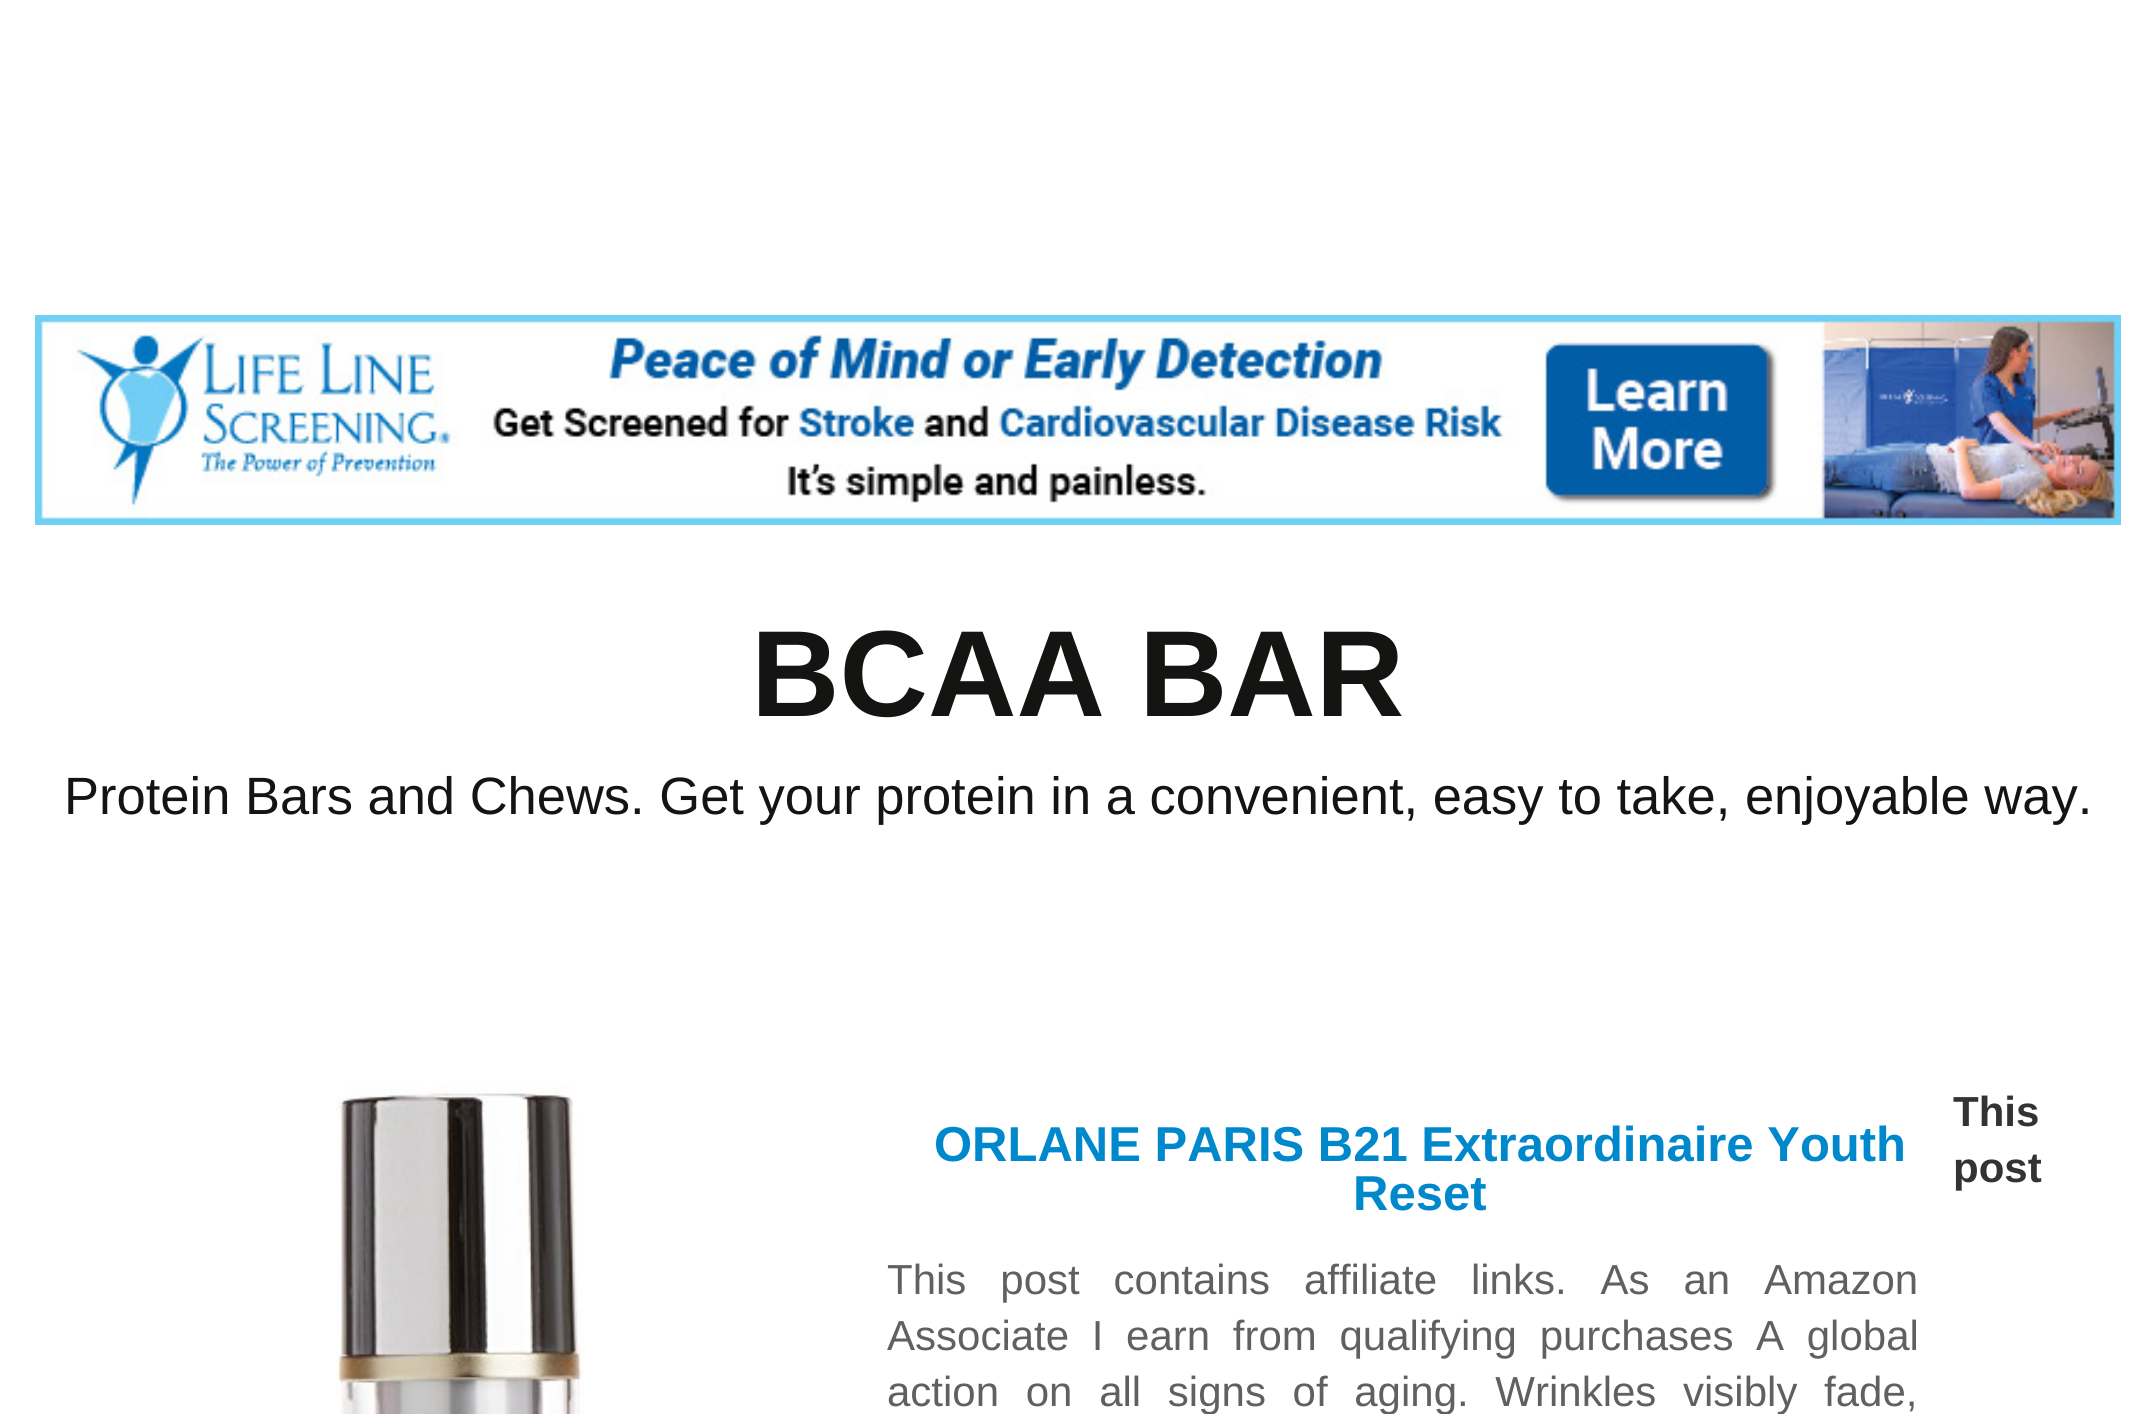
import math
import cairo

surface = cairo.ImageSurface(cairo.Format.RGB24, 2153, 1414)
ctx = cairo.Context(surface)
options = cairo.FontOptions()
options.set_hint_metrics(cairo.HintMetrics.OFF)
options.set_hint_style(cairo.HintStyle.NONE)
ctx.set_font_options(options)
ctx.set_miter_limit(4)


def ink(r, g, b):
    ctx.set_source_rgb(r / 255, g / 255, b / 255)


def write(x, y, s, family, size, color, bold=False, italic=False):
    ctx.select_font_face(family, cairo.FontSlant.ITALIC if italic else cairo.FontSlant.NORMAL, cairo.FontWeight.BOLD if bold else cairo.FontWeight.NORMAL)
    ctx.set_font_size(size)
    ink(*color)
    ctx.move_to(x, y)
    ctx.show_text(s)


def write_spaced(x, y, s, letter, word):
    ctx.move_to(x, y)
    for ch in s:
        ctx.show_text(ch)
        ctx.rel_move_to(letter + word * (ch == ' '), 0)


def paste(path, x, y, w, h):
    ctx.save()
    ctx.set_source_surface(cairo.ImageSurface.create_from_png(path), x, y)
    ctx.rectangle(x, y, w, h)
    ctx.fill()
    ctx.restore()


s1 = dict(family="Liberation Sans", size=122.5, color=(20, 20, 18), bold=True)
s2 = dict(family="Liberation Sans", size=52.5, color=(20, 20, 18))
s3 = dict(family="Liberation Sans", size=49, color=(0, 136, 204), bold=True)
s4 = dict(family="Liberation Sans", size=42, color=(51, 51, 51), bold=True)

ink(255, 255, 255)
ctx.paint()
paste("pic1.png", 35, 315, 2086, 210)
write(751, 716, "BCAA BAR", **s1)
write(64, 814, "Protein Bars and Chews. Get your protein in a convenient, easy to take, enjoyable way.", **s2)
paste("pic2.png", 336, 1086, 248, 328)
write(934, 1161, "ORLANE PARIS B21 Extraordinaire Youth", **s3)
write(1353, 1210, "Reset", **s3)
ctx.select_font_face("Liberation Sans")
ctx.set_font_size(42)
ink(96, 96, 96)
write_spaced(887, 1294, "This post contains affiliate links. As an Amazon", 0, 22.25)
write_spaced(887, 1350, "Associate I earn from qualifying purchases A global", 0, 11)
write_spaced(887, 1406, "action on all signs of aging. Wrinkles visibly fade,", 0, 15)
write(1953, 1126, "This", **s4)
write(1953, 1182, "post", **s4)
surface.write_to_png("screenshot.png")
